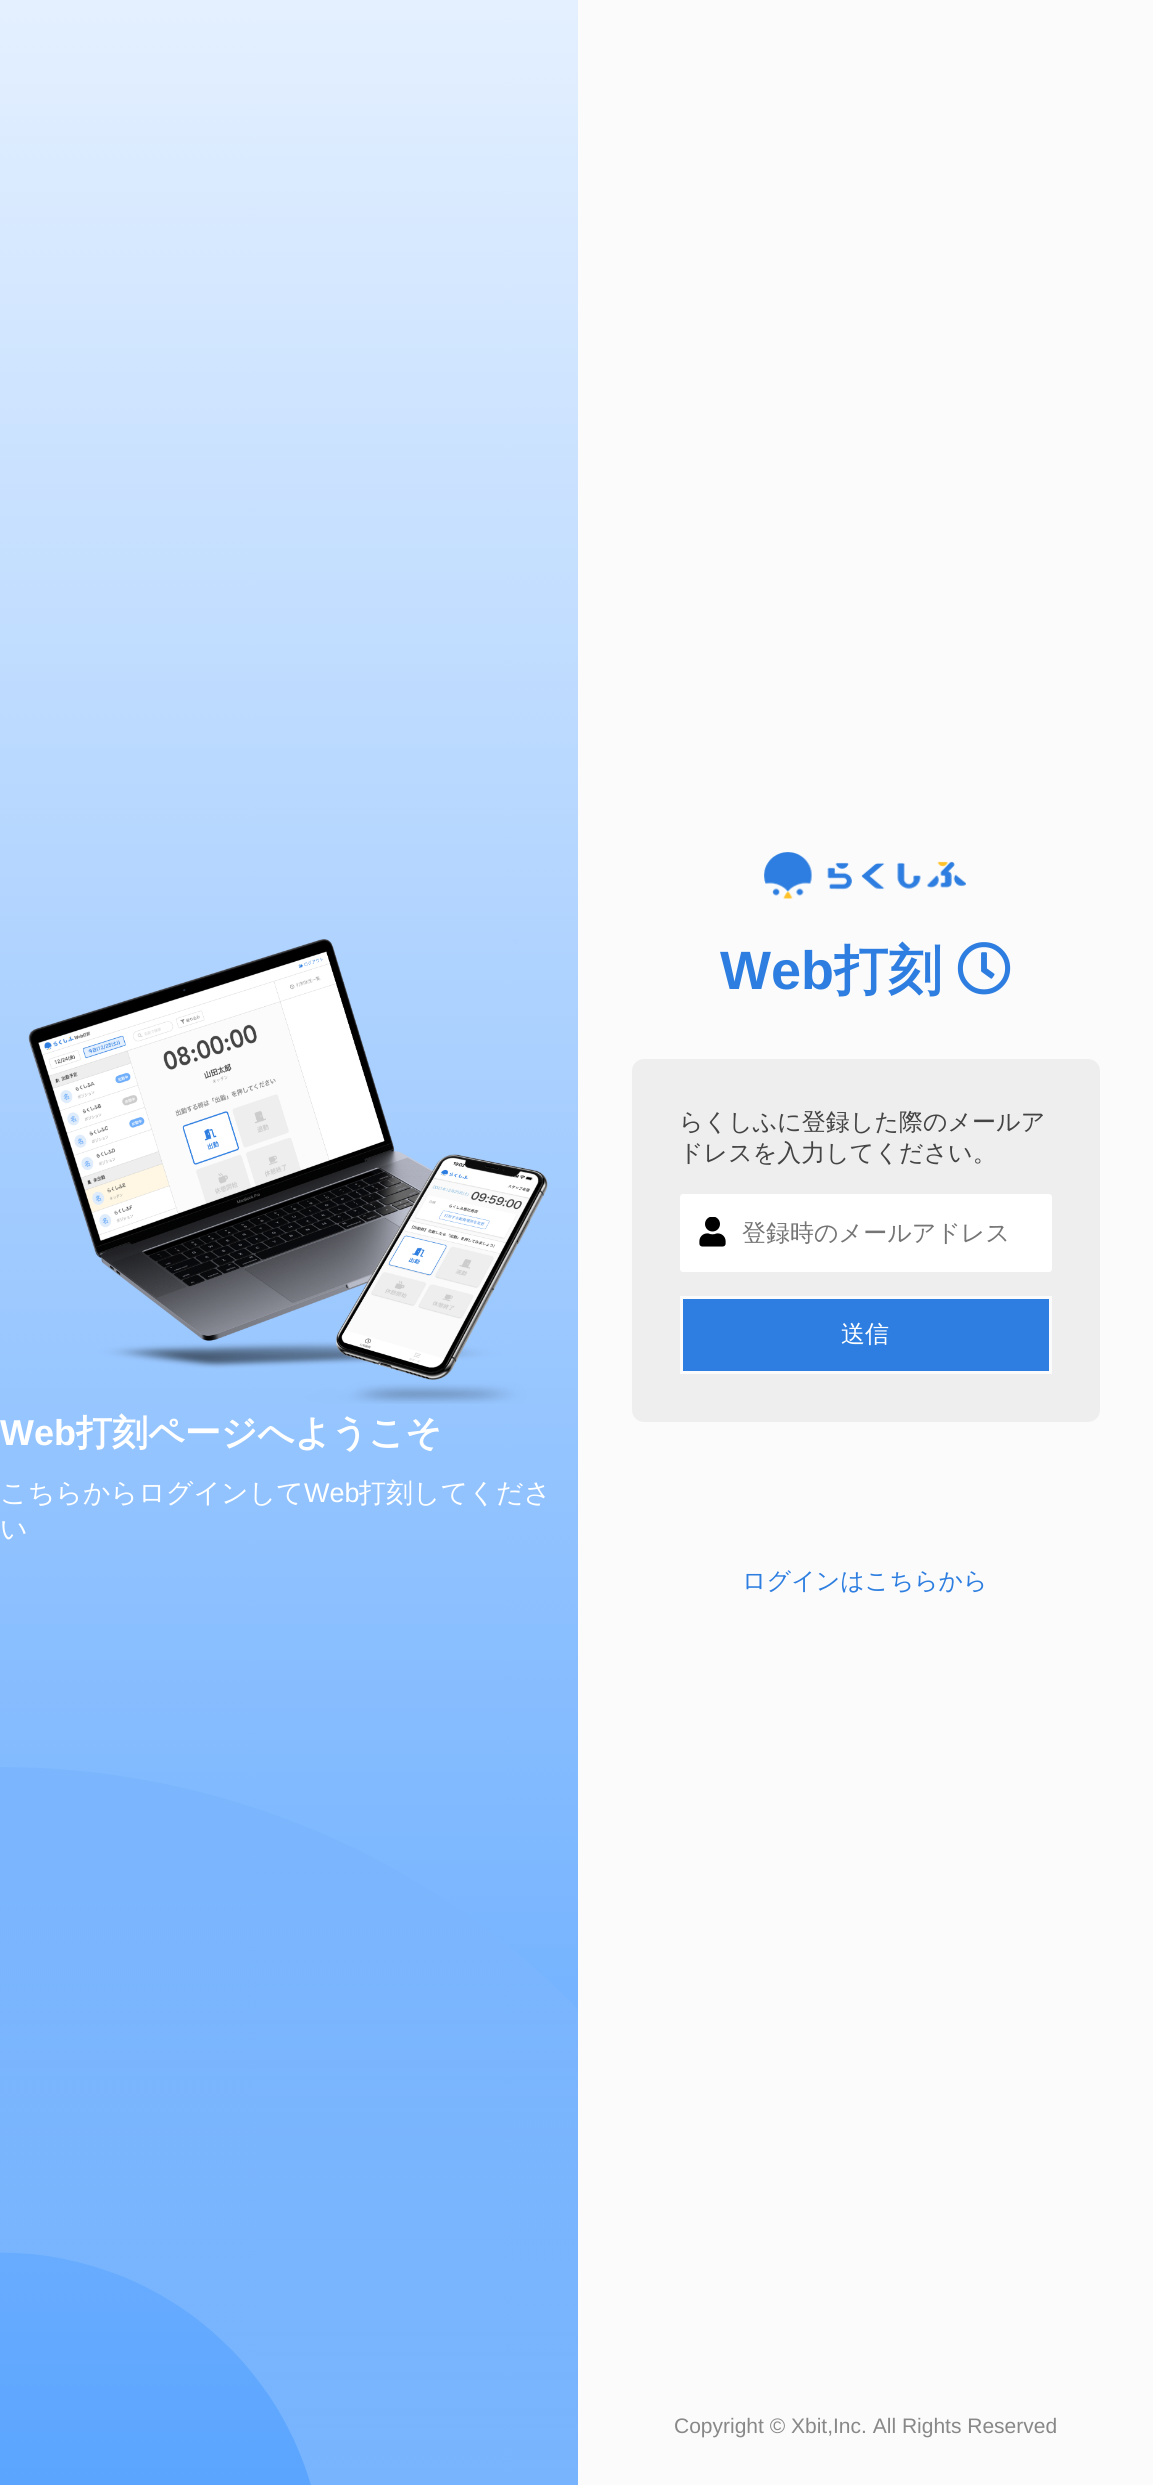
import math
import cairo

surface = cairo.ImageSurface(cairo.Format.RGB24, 1153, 2485)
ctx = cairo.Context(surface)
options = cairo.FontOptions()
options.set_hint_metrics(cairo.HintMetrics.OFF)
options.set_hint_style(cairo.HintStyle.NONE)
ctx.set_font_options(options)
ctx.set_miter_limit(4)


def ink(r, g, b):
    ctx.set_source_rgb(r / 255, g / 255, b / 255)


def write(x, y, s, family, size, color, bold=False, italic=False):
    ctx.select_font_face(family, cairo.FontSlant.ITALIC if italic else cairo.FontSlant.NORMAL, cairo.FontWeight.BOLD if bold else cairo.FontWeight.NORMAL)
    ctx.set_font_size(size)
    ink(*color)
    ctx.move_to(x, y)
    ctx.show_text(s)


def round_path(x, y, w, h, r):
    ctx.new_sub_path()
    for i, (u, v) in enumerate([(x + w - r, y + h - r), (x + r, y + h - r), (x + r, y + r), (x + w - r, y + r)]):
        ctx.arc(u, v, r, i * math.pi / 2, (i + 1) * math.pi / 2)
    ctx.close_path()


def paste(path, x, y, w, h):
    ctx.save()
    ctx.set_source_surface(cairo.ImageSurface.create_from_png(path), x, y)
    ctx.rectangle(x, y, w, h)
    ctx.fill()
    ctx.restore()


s1 = dict(family="Liberation Sans", size=36, color=(255, 255, 255), bold=True)
s2 = dict(family="WenQuanYi Zen Hei", size=36, color=(255, 255, 255), bold=True)
s3 = dict(family="WenQuanYi Zen Hei Medium", size=27, color=(255, 255, 255))
s4 = dict(family="Liberation Sans", size=27, color=(255, 255, 255))
s5 = dict(family="Liberation Sans", size=54, color=(45, 126, 224), bold=True)
s6 = dict(family="WenQuanYi Zen Hei", size=54, color=(45, 126, 224), bold=True)
s7 = dict(family="WenQuanYi Zen Hei Medium", size=24, color=(68, 68, 68))
s8 = dict(family="WenQuanYi Zen Hei Medium", size=24, color=(117, 117, 117))
s9 = dict(family="WenQuanYi Zen Hei Medium", size=24, color=(255, 255, 255))
s10 = dict(family="WenQuanYi Zen Hei Medium", size=24, color=(45, 126, 224))
s11 = dict(family="Liberation Sans", size=21, color=(136, 136, 136))

ink(251, 251, 251)
ctx.paint()
paste("pic1.png", 0, 0, 578, 2485)
paste("pic2.png", 28, 939, 520, 465)
write(0, 1445, "Web", **s1)
write(76, 1445, "打刻ページへようこそ", **s2)
write(0, 1502, "こちらからログインして", **s3)
write(304, 1502, "Web", **s4)
write(359, 1502, "打刻してくださ", **s3)
write(0, 1538, "い", **s3)
paste("pic3.png", 764, 852, 202, 47)
write(720, 989, "Web", **s5)
write(834, 989, "打刻", **s6)
paste("pic4.png", 957, 942, 54, 53)
ink(238, 238, 238)
round_path(632, 1059, 468, 363, 12)
ctx.fill()
write(679, 1130, "らくしふに登録した際のメールア", **s7)
write(679, 1161, "ドレスを入力してください。", **s7)
ink(255, 255, 255)
round_path(680, 1194, 372, 78, 3)
ctx.fill()
paste("pic5.png", 699, 1217, 27, 30)
write(742, 1241, "登録時のメールアドレス", **s8)
ink(45, 126, 224)
ctx.rectangle(681.5, 1297.5, 369, 75)
ctx.fill_preserve()
ink(251, 251, 251)
ctx.set_line_width(3)
ctx.stroke()
write(841, 1342, "送信", **s9)
write(742, 1589, "ログインはこちらから", **s10)
write(674, 2433, "Copyright © Xbit,Inc. All Rights Reserved", **s11)
surface.write_to_png("screenshot.png")
